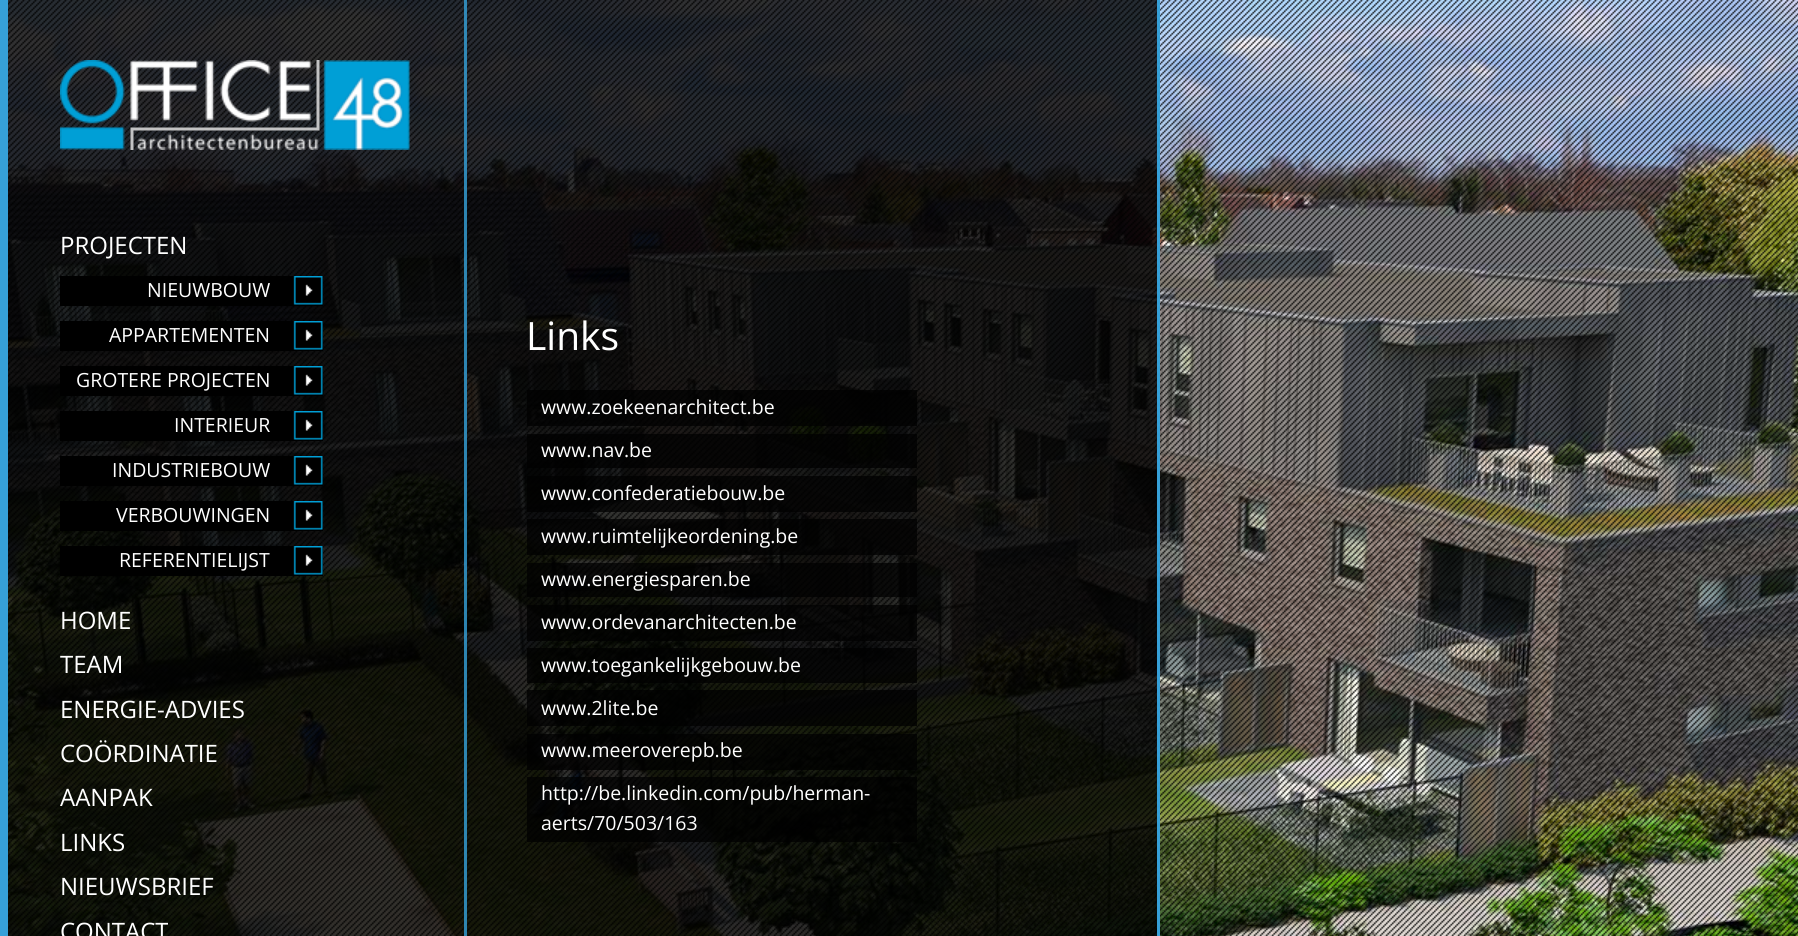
import math
import cairo

surface = cairo.ImageSurface(cairo.Format.RGB24, 1798, 936)
ctx = cairo.Context(surface)
options = cairo.FontOptions()
options.set_hint_metrics(cairo.HintMetrics.OFF)
options.set_hint_style(cairo.HintStyle.NONE)
ctx.set_font_options(options)
ctx.set_miter_limit(4)


def ink(r, g, b):
    ctx.set_source_rgb(r / 255, g / 255, b / 255)


def write(x, y, s, family, size, color, bold=False, italic=False):
    ctx.select_font_face(family, cairo.FontSlant.ITALIC if italic else cairo.FontSlant.NORMAL, cairo.FontWeight.BOLD if bold else cairo.FontWeight.NORMAL)
    ctx.set_font_size(size)
    ink(*color)
    ctx.move_to(x, y)
    ctx.show_text(s)


def block(x, y, w, h, *color):
    ink(*color)
    ctx.rectangle(x, y, w, h)
    ctx.fill()


def paste(path, x, y, w, h):
    ctx.save()
    ctx.set_source_surface(cairo.ImageSurface.create_from_png(path), x, y)
    ctx.rectangle(x, y, w, h)
    ctx.fill()
    ctx.restore()


s1 = dict(family="Open Sans", size=24, color=(255, 255, 255))
s2 = dict(family="Open Sans", size=19.5, color=(255, 255, 255))
s3 = dict(family="Open Sans", size=39, color=(255, 255, 255))

ink(255, 255, 255)
ctx.paint()
paste("pic1.png", 8, 0, 1790, 936)
ctx.set_source_rgba(0, 0, 0, 0.8)
ctx.rectangle(8, 0, 1149, 936)
ctx.fill()
ctx.set_source_rgba(0.208, 0.627, 0.847, 0.81)
ctx.rectangle(464, 0, 3, 936)
ctx.fill()
block(1157, 0, 3, 936, 54, 160, 216)
block(0, 0, 8, 936, 54, 160, 216)
paste("pic2.png", 60, 60, 350, 90)
write(60, 254, "PROJECTEN", **s1)
block(60, 276, 263, 30, 0, 0, 0)
paste("pic3.png", 293, 276, 30, 29)
write(147, 297, "NIEUWBOUW", **s2)
block(60, 321, 263, 30, 0, 0, 0)
paste("pic3.png", 293, 321, 30, 29)
write(109, 342, "APPARTEMENTEN", **s2)
block(60, 366, 263, 30, 0, 0, 0)
paste("pic3.png", 293, 366, 30, 29)
write(76, 387, "GROTERE PROJECTEN", **s2)
block(60, 411, 263, 30, 0, 0, 0)
paste("pic3.png", 293, 411, 30, 29)
write(174, 432, "INTERIEUR", **s2)
block(60, 456, 263, 30, 0, 0, 0)
paste("pic3.png", 293, 456, 30, 29)
write(112, 477, "INDUSTRIEBOUW", **s2)
block(60, 501, 263, 30, 0, 0, 0)
paste("pic3.png", 293, 501, 30, 29)
write(116, 522, "VERBOUWINGEN", **s2)
block(60, 546, 263, 30, 0, 0, 0)
paste("pic3.png", 293, 546, 30, 29)
write(119, 567, "REFERENTIELIJST", **s2)
write(60, 629, "HOME", **s1)
write(60, 673, "TEAM", **s1)
write(60, 718, "ENERGIE-ADVIES", **s1)
write(60, 762, "COÖRDINATIE", **s1)
write(60, 806, "AANPAK", **s1)
write(60, 851, "LINKS", **s1)
write(60, 895, "NIEUWSBRIEF", **s1)
write(60, 940, "CONTACT", **s1)
write(526, 350, "Links", **s3)
ctx.set_source_rgba(0, 0, 0, 0.75)
ctx.rectangle(527, 390, 390, 36)
ctx.fill()
write(541, 414, "www.zoekeenarchitect.be", **s2)
ctx.set_source_rgba(0, 0, 0, 0.75)
ctx.rectangle(527, 434, 390, 34)
ctx.fill()
write(541, 457, "www.nav.be", **s2)
ctx.set_source_rgba(0, 0, 0, 0.75)
ctx.rectangle(527, 476, 390, 36)
ctx.fill()
write(541, 500, "www.confederatiebouw.be", **s2)
ctx.set_source_rgba(0, 0, 0, 0.75)
ctx.rectangle(527, 519, 390, 36)
ctx.fill()
write(541, 543, "www.ruimtelijkeordening.be", **s2)
ctx.set_source_rgba(0, 0, 0, 0.75)
ctx.rectangle(527, 563, 390, 34)
ctx.fill()
write(541, 586, "www.energiesparen.be", **s2)
ctx.set_source_rgba(0, 0, 0, 0.75)
ctx.rectangle(527, 605, 390, 36)
ctx.fill()
write(541, 629, "www.ordevanarchitecten.be", **s2)
ctx.set_source_rgba(0, 0, 0, 0.75)
ctx.rectangle(527, 648, 390, 35)
ctx.fill()
write(541, 672, "www.toegankelijkgebouw.be", **s2)
ctx.set_source_rgba(0, 0, 0, 0.75)
ctx.rectangle(527, 690, 390, 36)
ctx.fill()
write(541, 715, "www.2lite.be", **s2)
ctx.set_source_rgba(0, 0, 0, 0.75)
ctx.rectangle(527, 734, 390, 36)
ctx.fill()
write(541, 757, "www.meeroverepb.be", **s2)
ctx.set_source_rgba(0, 0, 0, 0.75)
ctx.rectangle(527, 777, 390, 65)
ctx.fill()
write(541, 800, "http://be.linkedin.com/pub/herman-", **s2)
write(541, 830, "aerts/70/503/163", **s2)
surface.write_to_png("screenshot.png")
